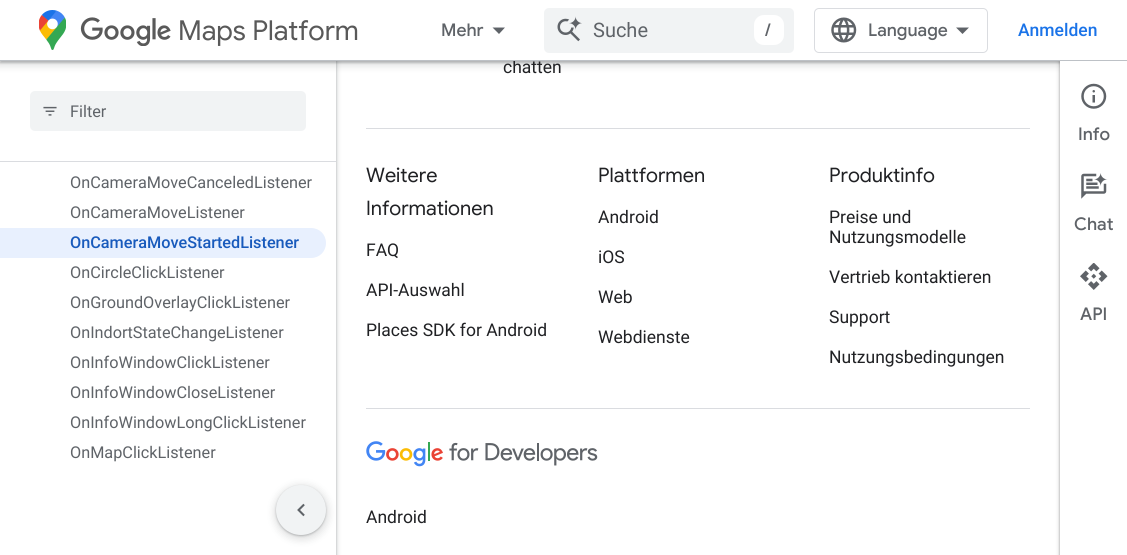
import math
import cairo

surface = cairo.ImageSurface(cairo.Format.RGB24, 1127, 555)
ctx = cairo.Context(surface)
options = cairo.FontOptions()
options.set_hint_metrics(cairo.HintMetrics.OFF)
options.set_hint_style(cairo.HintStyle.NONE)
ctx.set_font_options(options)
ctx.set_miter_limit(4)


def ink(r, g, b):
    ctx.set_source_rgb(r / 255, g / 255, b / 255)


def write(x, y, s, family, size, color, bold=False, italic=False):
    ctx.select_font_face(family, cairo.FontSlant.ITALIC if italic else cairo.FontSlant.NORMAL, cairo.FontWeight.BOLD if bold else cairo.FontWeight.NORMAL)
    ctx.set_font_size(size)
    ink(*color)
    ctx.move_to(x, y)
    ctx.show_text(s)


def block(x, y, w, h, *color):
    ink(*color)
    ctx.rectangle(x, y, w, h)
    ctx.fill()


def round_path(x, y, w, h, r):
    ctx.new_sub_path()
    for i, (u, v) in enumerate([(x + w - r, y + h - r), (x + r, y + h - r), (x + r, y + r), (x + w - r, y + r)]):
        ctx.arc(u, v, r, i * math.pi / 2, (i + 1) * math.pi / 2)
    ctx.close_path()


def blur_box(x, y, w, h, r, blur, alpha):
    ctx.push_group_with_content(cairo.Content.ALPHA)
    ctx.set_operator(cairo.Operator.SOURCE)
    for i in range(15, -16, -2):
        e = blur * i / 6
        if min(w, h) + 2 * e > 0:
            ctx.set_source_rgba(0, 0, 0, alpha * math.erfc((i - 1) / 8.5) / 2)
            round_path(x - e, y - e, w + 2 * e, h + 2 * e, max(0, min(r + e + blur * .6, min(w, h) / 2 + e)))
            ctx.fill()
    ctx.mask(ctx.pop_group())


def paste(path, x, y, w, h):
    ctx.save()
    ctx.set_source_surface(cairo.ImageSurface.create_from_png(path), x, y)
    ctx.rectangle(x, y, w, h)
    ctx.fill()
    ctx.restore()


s1 = dict(family="Roboto", size=17.5, color=(32, 33, 36))
s2 = dict(family="Google Sans", size=27.5, color=(89, 89, 89))
s3 = dict(family="Google Sans Medium", size=17.5, color=(95, 99, 104))
s4 = dict(family="Roboto", size=20, color=(95, 99, 104))
s5 = dict(family="Roboto Medium", size=17.5, color=(26, 115, 232))
s6 = dict(family="Roboto", size=16.25, color=(95, 99, 104))
s7 = dict(family="Roboto Medium", size=16.25, color=(24, 90, 188))
s8 = dict(family="Google Sans", size=20, color=(32, 33, 36))

ink(255, 255, 255)
ctx.paint()
ink(60, 64, 67)
blur_box(-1, 0, 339, 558, 0, 2, 0.15)
blur_box(0, 1, 336, 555, 0, 1, 0.3)
block(0, 61, 336, 494, 255, 255, 255)
ink(60, 64, 67)
blur_box(-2, -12, 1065, 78, 0, 4, 0.15)
blur_box(0, -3, 1060, 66, 0, 1, 0.3)
write(503, 73, "chatten", **s1)
ink(0, 0, 0)
blur_box(1059, 60, 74, 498, 0, 2, 0.15)
blur_box(1060, 61, 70, 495, 0, 1, 0.3)
block(0, 0, 1127, 60, 255, 255, 255)
block(0, 60, 1127, 1, 189, 193, 198)
paste("pic1.png", 39, 10, 27, 40)
paste("pic2.png", 80, 17, 91, 29)
write(178, 40, "Maps Platform", **s2)
write(441, 36, "Mehr", **s3)
ctx.new_path()
ctx.move_to(492.5, 27.5)
ctx.line_to(505, 27.5)
ctx.line_to(499, 34)
ctx.close_path()
ctx.fill()
ink(241, 243, 244)
round_path(544, 8, 250, 45, 5)
ctx.fill()
paste("pic3.png", 557, 16, 25, 26)
write(593, 37, "Suche", **s4)
ink(255, 255, 255)
round_path(754, 15, 30, 30, 10)
ctx.fill()
write(765, 36, "/", **s3)
round_path(814.5, 8.5, 173, 44, 4.5)
ink(218, 220, 224)
ctx.set_line_width(1)
ctx.stroke()
paste("pic4.png", 831, 17, 26, 26)
write(868, 36, "Language", **s3)
ctx.new_path()
ctx.move_to(962.5, 34)
ctx.line_to(956, 27.5)
ctx.line_to(969, 27.5)
ctx.close_path()
ctx.fill()
write(1018, 36, "Anmelden", **s5)
block(0, 161, 336, 1, 218, 220, 224)
ink(241, 243, 244)
round_path(30, 91, 276, 40, 5)
ctx.fill()
paste("pic5.png", 43, 106, 14, 10)
write(70, 117, "Filter", **s6)
write(70, 188, "OnCameraMoveCanceledListener", **s6)
write(70, 218, "OnCameraMoveListener", **s6)
ink(232, 240, 254)
ctx.new_path()
ctx.move_to(0, 228)
ctx.line_to(311, 228)
ctx.curve_to(319.5, 228, 326, 234.5, 326, 243)
ctx.curve_to(326, 251.5, 319.5, 258, 311, 258)
ctx.line_to(0, 258)
ctx.close_path()
ctx.fill()
write(70, 248, "OnCameraMoveStartedListener", **s7)
write(70, 278, "OnCircleClickListener", **s6)
write(70, 308, "OnGroundOverlayClickListener", **s6)
write(70, 338, "OnIndortStateChangeListener", **s6)
write(70, 368, "OnInfoWindowClickListener", **s6)
write(70, 398, "OnInfoWindowCloseListener", **s6)
write(70, 428, "OnInfoWindowLongClickListener", **s6)
write(70, 458, "OnMapClickListener", **s6)
block(366, 128, 664, 1, 218, 220, 224)
block(366, 408, 664, 1, 218, 220, 224)
write(366, 182, "Weitere", **s8)
write(366, 215, "Informationen", **s8)
write(366, 256, "FAQ", **s1)
write(366, 296, "API-Auswahl", **s1)
write(366, 336, "Places SDK for Android", **s1)
write(598, 182, "Plattformen", **s8)
write(598, 223, "Android", **s1)
write(598, 263, "iOS", **s1)
write(598, 303, "Web", **s1)
write(598, 343, "Webdienste", **s1)
write(829, 182, "Produktinfo", **s8)
write(829, 223, "Preise und", **s1)
write(829, 243, "Nutzungsmodelle", **s1)
write(829, 283, "Vertrieb kontaktieren", **s1)
write(829, 323, "Support", **s1)
write(829, 363, "Nutzungsbedingungen", **s1)
block(1060, 61, 67, 494, 255, 255, 255)
paste("pic6.png", 1081, 83, 26, 26)
write(1078, 140, "Info", **s3)
paste("pic7.png", 1081, 173, 27, 26)
write(1074, 230, "Chat", **s3)
paste("pic8.png", 1080, 263, 28, 27)
write(1080, 320, "API", **s3)
paste("pic9.png", 366, 441, 232, 26)
write(366, 523, "Android", **s1)
ink(60, 64, 67)
blur_box(274, 485, 55, 55, 27.5, 4, 0.15)
blur_box(276, 486, 50, 50, 25, 1, 0.3)
ink(241, 243, 244)
ctx.arc(301, 510, 25, 0, 2 * math.pi)
ctx.fill()
paste("pic10.png", 297, 503, 8, 14)
surface.write_to_png("screenshot.png")
